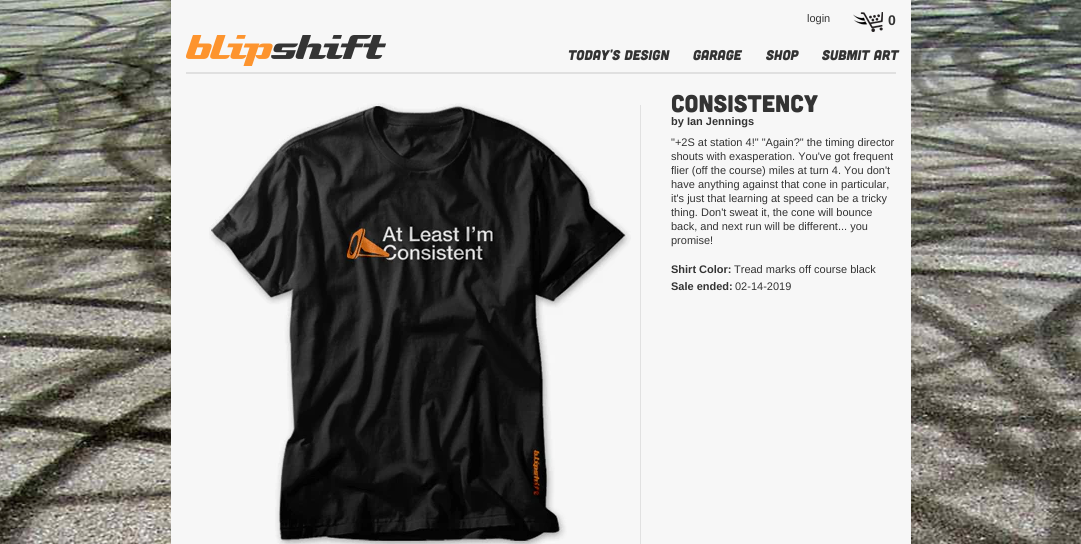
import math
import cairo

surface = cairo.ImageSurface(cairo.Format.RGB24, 1081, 544)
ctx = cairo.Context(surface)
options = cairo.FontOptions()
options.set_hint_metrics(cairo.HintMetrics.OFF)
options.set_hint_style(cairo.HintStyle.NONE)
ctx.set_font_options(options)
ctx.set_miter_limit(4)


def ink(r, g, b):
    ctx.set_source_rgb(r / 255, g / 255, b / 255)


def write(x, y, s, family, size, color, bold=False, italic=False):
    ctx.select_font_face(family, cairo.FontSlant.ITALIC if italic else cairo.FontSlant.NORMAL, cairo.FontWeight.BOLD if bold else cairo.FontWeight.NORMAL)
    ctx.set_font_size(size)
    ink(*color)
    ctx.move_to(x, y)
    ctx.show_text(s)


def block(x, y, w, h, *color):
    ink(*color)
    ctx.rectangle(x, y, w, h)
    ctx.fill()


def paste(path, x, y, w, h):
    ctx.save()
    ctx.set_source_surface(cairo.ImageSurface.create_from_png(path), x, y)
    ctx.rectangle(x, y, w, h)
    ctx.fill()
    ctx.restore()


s1 = dict(family="Liberation Sans", size=11, color=(51, 51, 51))
s2 = dict(family="Liberation Sans", size=14, color=(51, 51, 51), bold=True)
s3 = dict(family="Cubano", size=14, color=(51, 51, 51), italic=True)
s4 = dict(family="Cubano", size=24, color=(51, 51, 51))
s5 = dict(family="Liberation Sans", size=11, color=(51, 51, 51), bold=True)

ink(255, 255, 255)
ctx.paint()
paste("pic1.png", 0, 0, 1081, 544)
block(171, 0, 740, 544, 247, 247, 247)
paste("pic2.png", 186, 35, 200, 31)
write(807, 22, "login", **s1)
paste("pic3.png", 853, 12, 30, 20)
write(888, 25, "0", **s2)
write(568, 60, "Today's Design", **s3)
write(693, 60, "Garage", **s3)
write(766, 60, "Shop", **s3)
write(822, 60, "Submit Art", **s3)
block(186, 72, 710, 2, 224, 224, 224)
paste("pic4.png", 209, 103, 422, 441)
block(640, 105, 1, 439, 225, 225, 225)
write(671, 112, "Consistency", **s4)
write(671, 125, "by Ian Jennings", **s5)
write(671, 146, "\"+2S at station 4!\" \"Again?\" the timing director", **s1)
write(671, 160, "shouts with exasperation. You've got frequent", **s1)
write(671, 174, "flier (off the course) miles at turn 4. You don't", **s1)
write(671, 188, "have anything against that cone in particular,", **s1)
write(671, 202, "it's just that learning at speed can be a tricky", **s1)
write(671, 216, "thing. Don't sweat it, the cone will bounce", **s1)
write(671, 230, "back, and next run will be different... you", **s1)
write(671, 244, "promise!", **s1)
write(671, 273, "Shirt Color:", **s5)
write(734, 273, "Tread marks off course black", **s1)
write(671, 290, "Sale ended:", **s5)
write(735, 290, "02-14-2019", **s1)
surface.write_to_png("screenshot.png")
